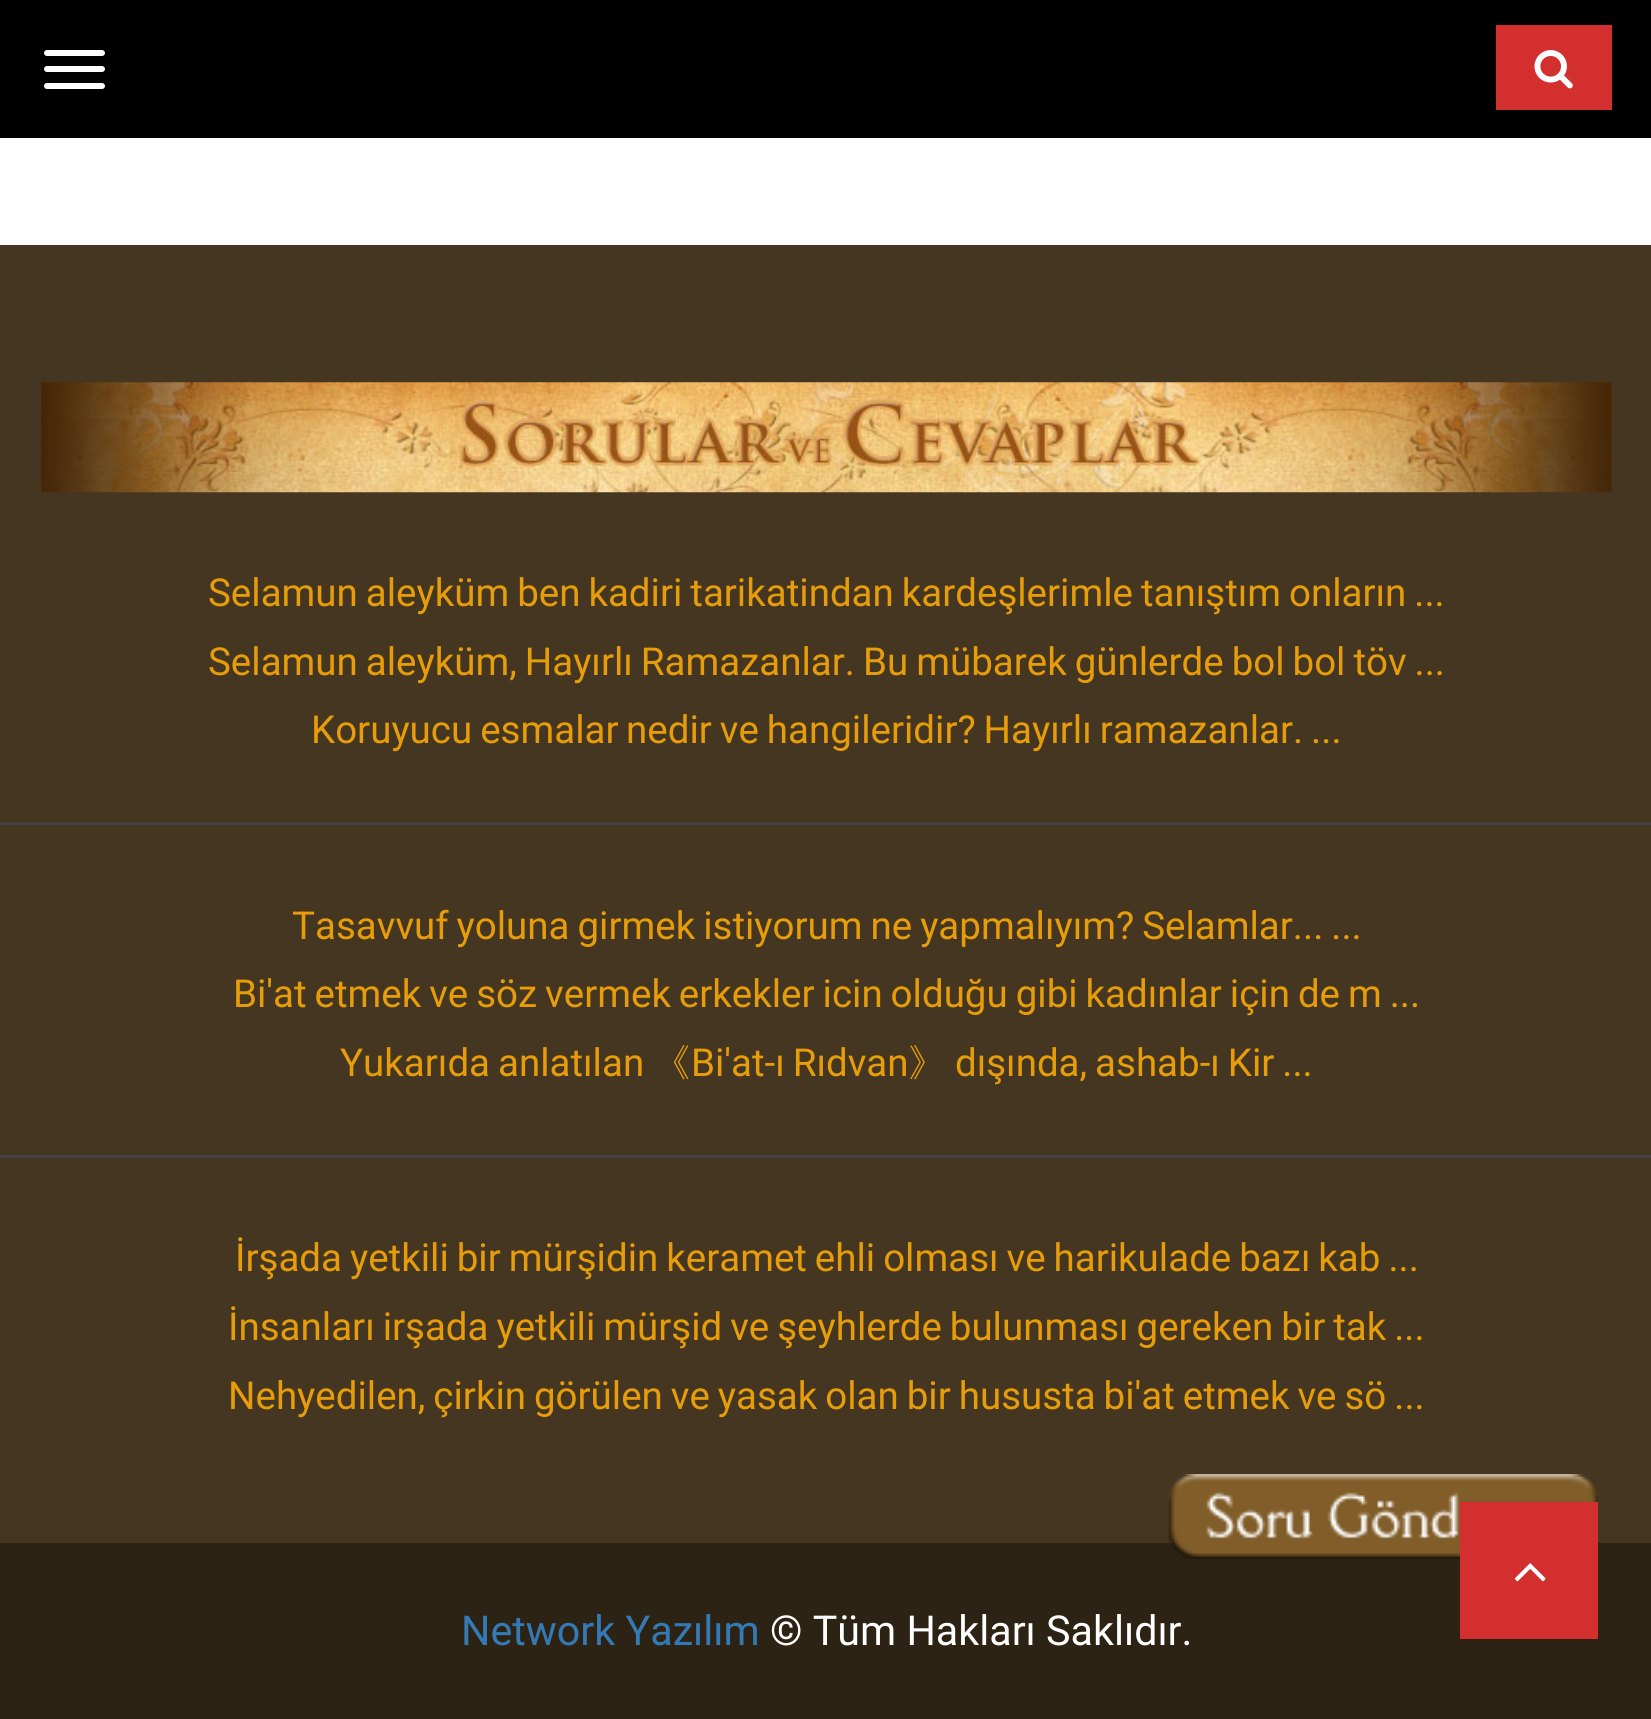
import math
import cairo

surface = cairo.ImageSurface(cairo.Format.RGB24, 1651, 1719)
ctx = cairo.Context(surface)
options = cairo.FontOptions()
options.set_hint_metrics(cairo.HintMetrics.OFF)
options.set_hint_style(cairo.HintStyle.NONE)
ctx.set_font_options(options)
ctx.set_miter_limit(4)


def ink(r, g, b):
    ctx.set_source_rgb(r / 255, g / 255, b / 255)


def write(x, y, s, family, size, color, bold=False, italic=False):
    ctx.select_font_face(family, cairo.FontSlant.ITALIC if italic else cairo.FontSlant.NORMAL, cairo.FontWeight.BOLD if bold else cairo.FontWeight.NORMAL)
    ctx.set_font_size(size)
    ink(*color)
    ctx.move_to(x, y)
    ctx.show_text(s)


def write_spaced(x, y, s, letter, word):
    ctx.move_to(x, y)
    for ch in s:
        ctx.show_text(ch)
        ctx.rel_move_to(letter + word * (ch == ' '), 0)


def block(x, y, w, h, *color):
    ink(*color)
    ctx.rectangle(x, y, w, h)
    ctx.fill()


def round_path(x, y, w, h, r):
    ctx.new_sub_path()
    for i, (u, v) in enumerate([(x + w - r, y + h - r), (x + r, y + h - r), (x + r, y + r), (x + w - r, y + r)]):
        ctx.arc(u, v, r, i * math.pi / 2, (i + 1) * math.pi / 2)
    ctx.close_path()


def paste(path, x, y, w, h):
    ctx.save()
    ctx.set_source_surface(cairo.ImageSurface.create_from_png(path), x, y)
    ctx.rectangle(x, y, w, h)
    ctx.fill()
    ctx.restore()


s1 = dict(family="WenQuanYi Zen Hei Medium", size=38.5, color=(230, 157, 9))
s2 = dict(family="Roboto", size=41.25, color=(51, 122, 183))
s3 = dict(family="Roboto", size=41.25, color=(255, 255, 255))

ink(255, 255, 255)
ctx.paint()
block(0, 0, 1651, 138, 0, 0, 0)
ink(255, 255, 255)
round_path(44, 50, 61, 6, 3)
ctx.fill()
round_path(44, 66, 61, 6, 3)
ctx.fill()
round_path(44, 83, 61, 6, 3)
ctx.fill()
block(1496, 25, 116, 85, 211, 47, 47)
paste("pic1.png", 1534, 50, 39, 39)
block(0, 245, 1651, 1298, 69, 54, 33)
paste("pic2.png", 41, 382, 1571, 111)
block(0, 822, 1651, 3, 67, 67, 67)
ctx.select_font_face("Roboto")
ctx.set_font_size(38.5)
ink(230, 157, 9)
write_spaced(208, 606, "Selamun aleyküm ben kadiri tarikatindan kardeşlerimle tanıştım onların ...", 0, -1.6)
write_spaced(208, 675, "Selamun aleyküm, Hayırlı Ramazanlar.", 0, -1.6)
write_spaced(863, 675, "Bu mübarek günlerde bol bol töv ...", 0, -1.6)
write_spaced(311, 743, "Koruyucu esmalar", 0, -1.6)
write_spaced(626, 743, "nedir ve hangileridir? Hayırlı ramazanlar. ...", 0, -1.6)
block(0, 1155, 1651, 3, 67, 67, 67)
ink(230, 157, 9)
write_spaced(292, 939, "Tasavvuf yoluna girmek istiyorum ne yapmalıyım? Selamlar... ...", 0, -1.6)
write_spaced(233, 1007, "Bi'at etmek ve söz vermek erkekler icin olduğu gibi kadınlar için de m ...", 0, -1.6)
write_spaced(340, 1076, "Yukarıda anlatılan", 0, -1.6)
write(652, 1076, "《", **s1)
ctx.select_font_face("Roboto")
write_spaced(691, 1076, "Bi'at-ı Rıdvan", 0, -1.6)
write(908, 1076, "》", **s1)
ctx.select_font_face("Roboto")
write_spaced(955, 1076, "dışında, ashab-ı Kir ...", 0, -1.6)
write_spaced(235, 1271, "İrşada yetkili bir mürşidin keramet ehli olması ve harikulade bazı kab ...", 0, -1.6)
write_spaced(228, 1340, "İnsanları irşada yetkili mürşid ve şeyhlerde bulunması gereken bir tak ...", 0, -1.6)
write_spaced(228, 1409, "Nehyedilen, çirkin görülen ve yasak olan bir hususta bi'at etmek ve sö ...", 0, -1.6)
block(0, 1543, 1651, 176, 45, 35, 20)
paste("pic3.png", 1168, 1474, 430, 85)
write(461, 1645, "Network Yazılım", **s2)
write(770, 1645, "© Tüm Hakları Saklıdır.", **s3)
block(1460, 1502, 138, 137, 211, 47, 47)
paste("pic4.png", 1514, 1563, 32, 19)
surface.write_to_png("screenshot.png")
